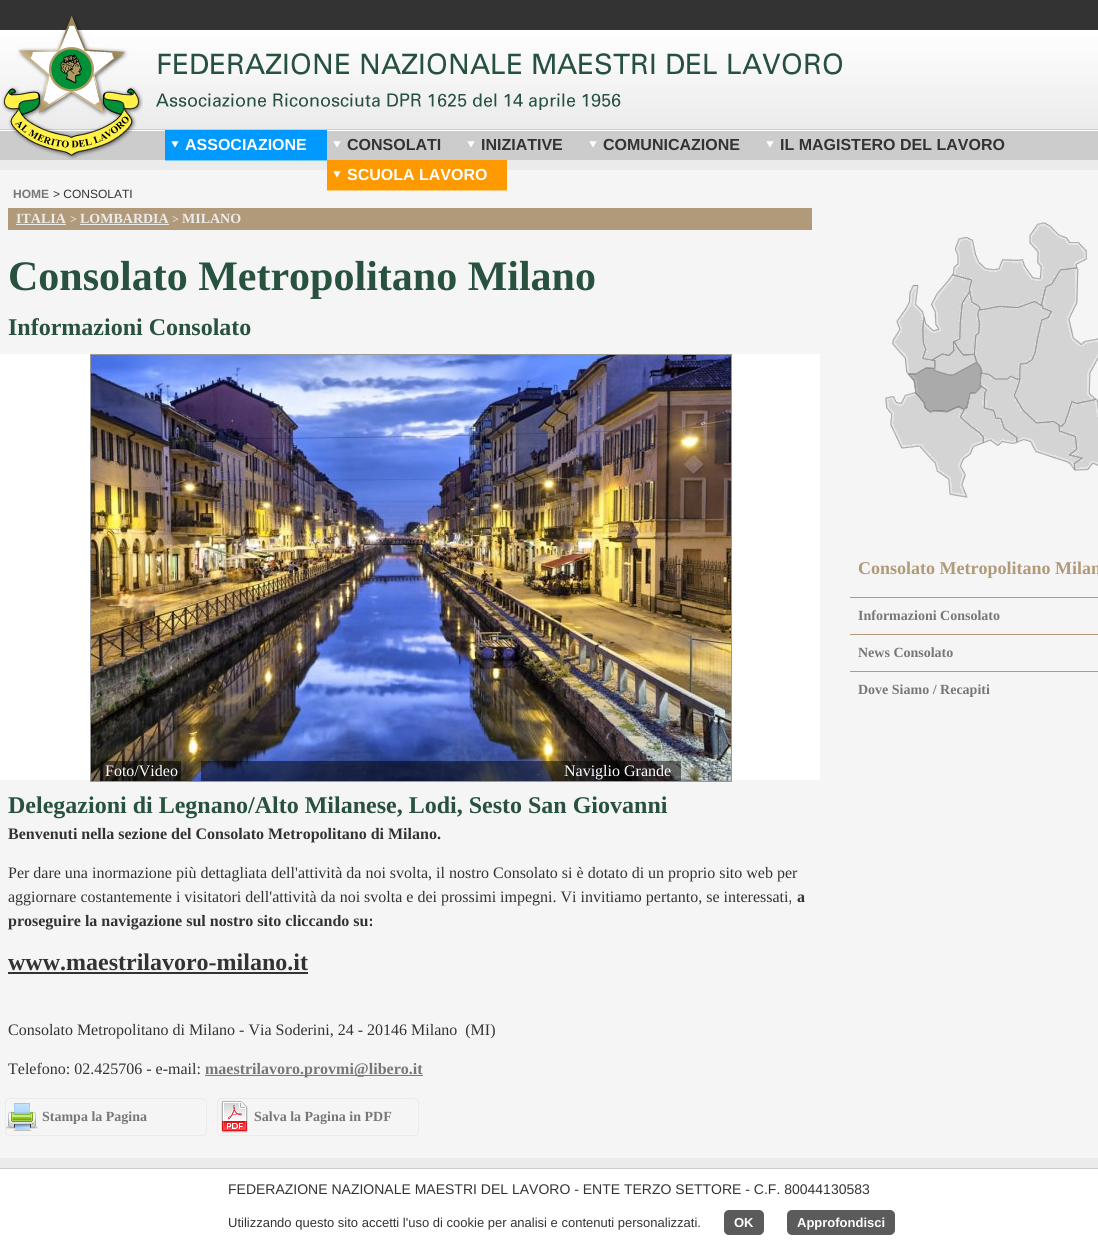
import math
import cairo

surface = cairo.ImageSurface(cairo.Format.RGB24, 1098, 1241)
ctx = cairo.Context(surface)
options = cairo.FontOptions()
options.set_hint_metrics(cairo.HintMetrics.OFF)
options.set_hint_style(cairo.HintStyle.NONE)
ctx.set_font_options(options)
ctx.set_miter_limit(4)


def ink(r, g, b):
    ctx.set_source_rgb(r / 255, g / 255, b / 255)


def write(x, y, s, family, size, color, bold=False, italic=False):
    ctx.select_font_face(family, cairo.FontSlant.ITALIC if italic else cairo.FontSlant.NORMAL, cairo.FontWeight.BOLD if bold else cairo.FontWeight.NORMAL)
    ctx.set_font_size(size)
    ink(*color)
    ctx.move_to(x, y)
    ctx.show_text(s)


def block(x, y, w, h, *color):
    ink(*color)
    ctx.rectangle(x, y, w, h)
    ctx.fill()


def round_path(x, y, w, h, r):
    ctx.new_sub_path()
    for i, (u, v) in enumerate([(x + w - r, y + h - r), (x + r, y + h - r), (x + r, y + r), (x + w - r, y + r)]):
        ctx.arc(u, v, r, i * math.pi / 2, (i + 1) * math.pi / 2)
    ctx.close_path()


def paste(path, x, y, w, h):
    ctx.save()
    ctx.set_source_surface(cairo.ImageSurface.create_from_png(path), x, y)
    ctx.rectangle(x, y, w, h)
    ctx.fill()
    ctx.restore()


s1 = dict(family="Liberation Sans", size=16, color=(255, 255, 255), bold=True)
s2 = dict(family="Liberation Sans", size=16, color=(51, 51, 51), bold=True)
s3 = dict(family="Liberation Sans", size=12, color=(119, 119, 119), bold=True)
s4 = dict(family="Liberation Sans", size=12, color=(51, 51, 51))
s5 = dict(family="Liberation Serif", size=14, color=(235, 235, 235), bold=True)
s6 = dict(family="Liberation Serif", size=12, color=(235, 235, 235), bold=True)
s7 = dict(family="Liberation Serif", size=42, color=(40, 81, 63), bold=True)
s8 = dict(family="Liberation Serif", size=24, color=(40, 81, 63), bold=True)
s9 = dict(family="Liberation Serif", size=16, color=(255, 255, 255))
s10 = dict(family="Liberation Serif", size=16, color=(51, 51, 51), bold=True)
s11 = dict(family="Liberation Serif", size=16, color=(51, 51, 51))
s12 = dict(family="Liberation Serif", size=24, color=(51, 51, 51), bold=True)
s13 = dict(family="Liberation Serif", size=16, color=(119, 119, 119), bold=True)
s14 = dict(family="Liberation Serif", size=14, color=(119, 119, 119), bold=True)
s15 = dict(family="Liberation Serif", size=18, color=(176, 154, 121), bold=True)
s16 = dict(family="Liberation Sans", size=14, color=(51, 51, 51))
s17 = dict(family="Liberation Sans", size=13, color=(51, 51, 51))
s18 = dict(family="Liberation Sans", size=13, color=(255, 255, 255), bold=True)

ink(235, 235, 235)
ctx.paint()
paste("pic1.png", 0, 0, 1098, 160)
paste("pic2.png", 2, 16, 840, 144)
block(165, 130, 162, 30, 0, 153, 255)
block(165, 160, 162, 1, 122, 203, 255)
paste("pic3.png", 171, 141, 8, 7)
write(185, 150, "ASSOCIAZIONE", **s1)
paste("pic4.png", 333, 141, 8, 7)
write(347, 150, "CONSOLATI", **s2)
paste("pic4.png", 467, 141, 8, 7)
write(481, 150, "INIZIATIVE", **s2)
paste("pic4.png", 589, 141, 8, 7)
write(603, 150, "COMUNICAZIONE", **s2)
paste("pic4.png", 766, 141, 8, 7)
write(780, 150, "IL MAGISTERO DEL LAVORO", **s2)
block(0, 170, 1098, 988, 245, 245, 245)
block(327, 160, 180, 30, 255, 153, 0)
block(327, 190, 180, 1, 255, 205, 123)
paste("pic5.png", 333, 171, 8, 7)
write(347, 180, "SCUOLA LAVORO", **s1)
write(13, 198, "HOME", **s3)
write(53, 198, "> CONSOLATI", **s4)
block(8, 208, 804, 22, 176, 154, 121)
write(16, 223, "ITALIA", **s5)
block(16, 224, 50, 1, 235, 235, 235)
write(70, 223, ">", **s6)
write(80, 223, "LOMBARDIA", **s5)
block(80, 224, 89, 1, 235, 235, 235)
write(172, 223, ">", **s6)
write(182, 223, "MILANO", **s5)
write(8, 290, "Consolato Metropolitano Milano", **s7)
write(8, 335, "Informazioni Consolato", **s8)
block(0, 354, 820, 426, 255, 255, 255)
paste("pic6.png", 91, 355, 640, 426)
ctx.rectangle(90.5, 354.5, 641, 427)
ink(153, 153, 153)
ctx.set_line_width(1)
ctx.stroke()
ctx.set_source_rgba(0, 0, 0, 0.5)
ctx.rectangle(101, 761, 80, 20)
ctx.fill()
write(105, 776, "Foto/Video", **s9)
ctx.set_source_rgba(0, 0, 0, 0.5)
ctx.rectangle(201, 761, 480, 20)
ctx.fill()
write(564, 776, "Naviglio Grande", **s9)
write(8, 813, "Delegazioni di Legnano/Alto Milanese, Lodi, Sesto San Giovanni", **s8)
write(8, 839, "Benvenuti nella sezione del Consolato Metropolitano di Milano.", **s10)
write(8, 878, "Per dare una inormazione più dettagliata dell'attività da noi svolta, il nostro Consolato si è dotato di un proprio sito web per", **s11)
write(8, 902, "aggiornare costantemente i visitatori dell'attività da noi svolta e dei prossimi impegni. Vi invitiamo pertanto, se interessati,", **s11)
write(797, 902, "a", **s10)
write(8, 926, "proseguire la navigazione sul nostro sito cliccando su:", **s10)
write(8, 970, "www.maestrilavoro-milano.it", **s12)
block(8, 972, 300, 2, 51, 51, 51)
write(8, 1035, "Consolato Metropolitano di Milano - Via Soderini, 24 - 20146 Milano  (MI)", **s11)
write(8, 1074, "Telefono: 02.425706 - e-mail:", **s11)
block(205, 1075, 218, 1, 119, 119, 119)
write(205, 1074, "maestrilavoro.provmi@libero.it", **s13)
paste("pic7.png", 6, 1103, 32, 28)
round_path(5.5, 1098.5, 201, 37, 4.5)
ink(235, 235, 235)
ctx.stroke()
write(42, 1121, "Stampa la Pagina", **s14)
paste("pic8.png", 221, 1101, 27, 32)
round_path(217.5, 1098.5, 201, 37, 4.5)
ink(235, 235, 235)
ctx.stroke()
write(254, 1121, "Salva la Pagina in PDF", **s14)
paste("pic9.png", 885, 222, 213, 276)
paste("pic10.png", 907, 362, 76, 51)
write(858, 574, "Consolato Metropolitano Milan", **s15)
block(850, 597, 248, 1, 176, 154, 121)
write(858, 620, "Informazioni Consolato", **s14)
block(850, 634, 248, 1, 176, 154, 121)
write(858, 657, "News Consolato", **s14)
block(850, 671, 248, 1, 176, 154, 121)
write(858, 694, "Dove Siamo / Recapiti", **s14)
block(0, 1169, 1098, 72, 255, 255, 255)
block(0, 1168, 1098, 1, 204, 204, 204)
write(228, 1194, "FEDERAZIONE NAZIONALE MAESTRI DEL LAVORO - ENTE TERZO SETTORE - C.F. 80044130583", **s16)
write(228, 1227, "Utilizzando questo sito accetti l'uso di cookie per analisi e contenuti personalizzati.", **s17)
ctx.set_source_rgba(0.2, 0.2, 0.2, 0.8)
round_path(724, 1210, 40, 25, 5)
ctx.fill()
write(734, 1227, "OK", **s18)
ctx.set_source_rgba(0.2, 0.2, 0.2, 0.8)
round_path(787, 1210, 108, 25, 5)
ctx.fill()
write(797, 1227, "Approfondisci", **s18)
surface.write_to_png("screenshot.png")
